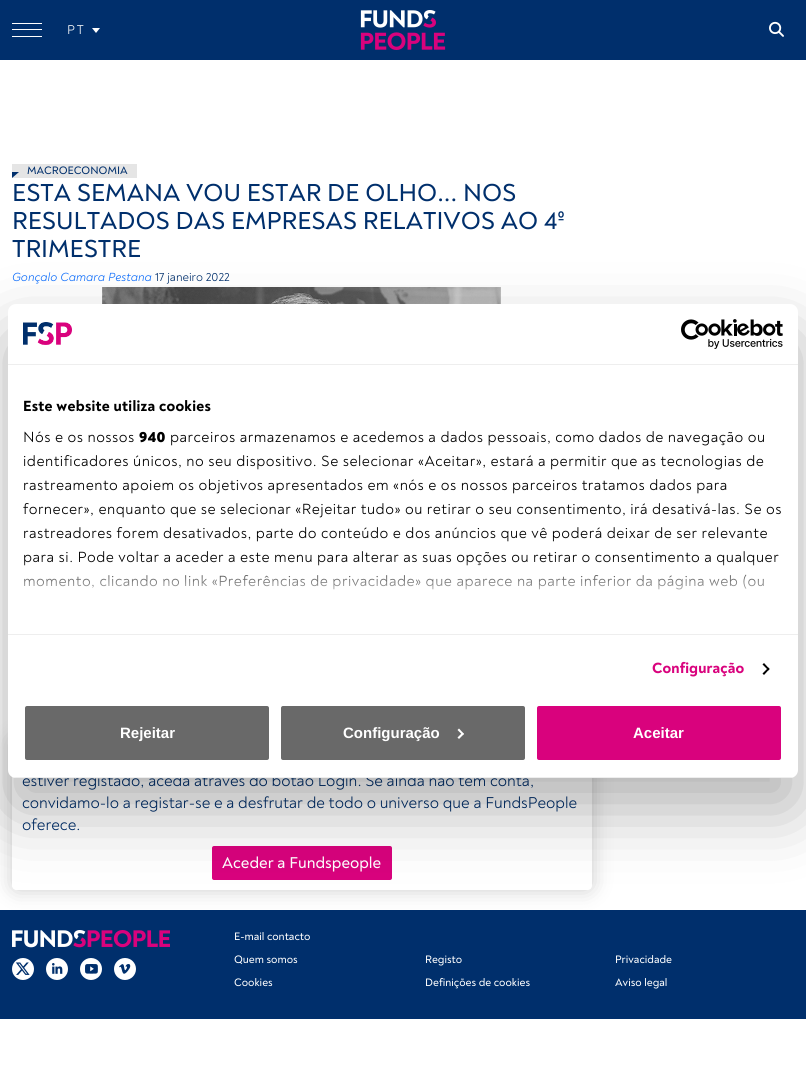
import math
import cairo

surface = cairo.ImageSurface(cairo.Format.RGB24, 806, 1081)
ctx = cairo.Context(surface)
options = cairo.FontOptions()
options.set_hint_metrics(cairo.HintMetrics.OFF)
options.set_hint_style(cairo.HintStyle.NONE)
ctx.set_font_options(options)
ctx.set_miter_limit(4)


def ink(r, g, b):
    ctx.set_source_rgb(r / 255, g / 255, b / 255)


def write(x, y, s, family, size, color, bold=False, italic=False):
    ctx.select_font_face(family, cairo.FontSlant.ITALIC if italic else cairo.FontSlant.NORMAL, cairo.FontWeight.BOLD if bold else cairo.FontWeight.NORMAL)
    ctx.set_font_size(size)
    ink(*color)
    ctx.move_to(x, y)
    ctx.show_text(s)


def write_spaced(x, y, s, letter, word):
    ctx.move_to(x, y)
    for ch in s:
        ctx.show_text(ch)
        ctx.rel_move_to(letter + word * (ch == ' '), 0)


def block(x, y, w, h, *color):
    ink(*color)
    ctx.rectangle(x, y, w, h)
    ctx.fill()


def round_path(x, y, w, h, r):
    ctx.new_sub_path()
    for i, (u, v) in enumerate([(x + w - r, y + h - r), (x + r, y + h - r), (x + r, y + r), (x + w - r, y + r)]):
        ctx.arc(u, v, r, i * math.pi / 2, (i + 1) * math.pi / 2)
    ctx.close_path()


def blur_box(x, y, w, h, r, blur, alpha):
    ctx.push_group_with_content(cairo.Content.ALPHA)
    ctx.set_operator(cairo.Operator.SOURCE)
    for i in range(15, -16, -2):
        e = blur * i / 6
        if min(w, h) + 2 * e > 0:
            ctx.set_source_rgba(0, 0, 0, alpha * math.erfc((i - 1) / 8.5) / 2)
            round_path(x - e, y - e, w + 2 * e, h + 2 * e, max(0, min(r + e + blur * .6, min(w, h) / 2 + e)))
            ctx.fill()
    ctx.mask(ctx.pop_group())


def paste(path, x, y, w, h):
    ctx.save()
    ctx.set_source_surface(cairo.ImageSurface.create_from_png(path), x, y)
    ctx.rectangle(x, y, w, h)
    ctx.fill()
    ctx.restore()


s1 = dict(family="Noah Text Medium", size=11, color=(0, 47, 108))
s2 = dict(family="Noah Text Medium", size=25, color=(0, 47, 108))
s3 = dict(family="Noah Text", size=12, color=(13, 110, 253), italic=True)
s4 = dict(family="Noah Text", size=12, color=(0, 47, 108))
s5 = dict(family="Noah Text", size=16, color=(0, 47, 108))
s6 = dict(family="Noah Text Medium", size=16, color=(255, 255, 255))
s7 = dict(family="Liberation Sans", size=15, color=(255, 255, 255), bold=True)
s8 = dict(family="Noah Text Medium", size=11, color=(255, 255, 255))

ink(255, 255, 255)
ctx.paint()
block(0, 0, 806, 60, 0, 47, 108)
block(12, 23, 30, 1, 255, 255, 255)
block(12, 29, 30, 1, 255, 255, 255)
block(12, 36, 30, 1, 255, 255, 255)
ctx.select_font_face("Noah Text")
ctx.set_font_size(13)
write_spaced(67, 34, "PT", 2, 0)
ctx.new_path()
ctx.move_to(92, 28)
ctx.line_to(100, 28)
ctx.line_to(96, 33)
ctx.close_path()
ctx.fill()
paste("pic1.png", 360, 10, 86, 40)
paste("pic2.png", 769, 21, 15, 16)
block(12, 164, 125, 14, 229, 229, 229)
ink(0, 47, 108)
ctx.new_path()
ctx.move_to(12, 178)
ctx.line_to(12, 172)
ctx.line_to(19, 172)
ctx.close_path()
ctx.fill()
write(27, 174, "MACROECONOMIA", **s1)
write(12, 201, "ESTA SEMANA VOU ESTAR DE OLHO... NOS", **s2)
write(12, 229, "RESULTADOS DAS EMPRESAS RELATIVOS AO 4º", **s2)
write(12, 257, "TRIMESTRE", **s2)
write(12, 281, "Gonçalo Camara Pestana", **s3)
write(155, 281, "17 janeiro 2022", **s4)
paste("pic3.png", 102, 287, 399, 17)
ctx.save()
ctx.set_fill_rule(cairo.FillRule.EVEN_ODD)
ctx.new_path()
ctx.move_to(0, 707)
ctx.line_to(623, 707)
ctx.line_to(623, 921)
ctx.line_to(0, 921)
ctx.close_path()
ctx.move_to(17, 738)
ctx.line_to(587, 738)
ctx.curve_to(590, 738, 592, 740, 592, 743)
ctx.line_to(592, 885)
ctx.curve_to(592, 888, 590, 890, 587, 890)
ctx.line_to(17, 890)
ctx.curve_to(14, 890, 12, 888, 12, 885)
ctx.line_to(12, 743)
ctx.curve_to(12, 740, 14, 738, 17, 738)
ctx.close_path()
ctx.clip()
ink(0, 0, 0)
blur_box(12, 738, 580, 152, 5, 10, 0.2)
ctx.restore()
write(22, 786, "estiver registado, aceda através do botão Login. Se ainda não tem conta,", **s5)
write(22, 808, "convidamo-lo a registar-se e a desfrutar de todo o universo que a FundsPeople", **s5)
write(22, 830, "oferece.", **s5)
ink(217, 2, 125)
round_path(212, 846, 180, 34, 2)
ctx.fill()
write(222, 868, "Aceder a Fundspeople", **s6)
block(0, 910, 806, 109, 0, 47, 108)
ink(0, 0, 0)
blur_box(8, 336, 790, 474, 8, 34, 0.3)
ink(255, 255, 255)
round_path(8, 304, 790, 474, 8)
ctx.fill()
block(8, 364, 790, 1, 238, 238, 238)
paste("pic4.png", 23, 322, 49, 23)
paste("pic5.png", 681, 319, 102, 30)
block(8, 634, 790, 1, 238, 238, 238)
ctx.select_font_face("Noah Text ExtraBold")
ctx.set_font_size(15)
ink(0, 0, 0)
write_spaced(23, 411, "Este website utiliza cookies", 0.25, 0)
ctx.select_font_face("Noah Text")
write_spaced(23, 442, "Nós e os nossos", 0.5, 0)
ctx.select_font_face("Noah Text Black")
write_spaced(139, 442, "940", 0.5, 0)
ctx.select_font_face("Noah Text")
write_spaced(170, 442, "parceiros armazenamos e acedemos a dados pessoais, como dados de navegação ou", 0.5, 0)
write_spaced(23, 466, "identificadores únicos, no seu dispositivo. Se selecionar «Aceitar», estará a permitir que as tecnologias de", 0.5, 0)
write_spaced(23, 490, "rastreamento apoiem os objetivos apresentados em «nós e os nossos parceiros tratamos dados para", 0.5, 0)
write_spaced(23, 514, "fornecer», enquanto que se selecionar «Rejeitar tudo» ou retirar o seu consentimento, irá desativá-las. Se os", 0.5, 0)
write_spaced(23, 538, "rastreadores forem desativados, parte do conteúdo e dos anúncios que vê poderá deixar de ser relevante", 0.5, 0)
write_spaced(23, 562, "para si. Pode voltar a aceder a este menu para alterar as suas opções ou retirar o consentimento a qualquer", 0.5, 0)
write_spaced(23, 586, "momento, clicando no link «Preferências de privacidade» que aparece na parte inferior da página web (ou", 0.5, 0)
gradient = cairo.LinearGradient(397, 634, 397, 559)
gradient.add_color_stop_rgba(0, 1, 1, 1, 1)
gradient.add_color_stop_rgba(0.5, 1, 1, 1, 0.8)
gradient.add_color_stop_rgba(1, 1, 1, 1, 0)
ctx.set_source(gradient)
ctx.rectangle(24, 560, 752, 30)
ctx.fill()
ctx.select_font_face("Noah Text ExtraBold")
ink(217, 2, 125)
write_spaced(652, 673, "Configuração", 0.1, 0)
ink(0, 0, 0)
ctx.new_path()
ctx.move_to(764, 663)
ctx.line_to(769.5, 669)
ctx.line_to(768.5, 670.5)
ctx.line_to(762.5, 664.5)
ctx.close_path()
ctx.fill()
ctx.new_path()
ctx.move_to(768.5, 667.5)
ctx.line_to(769.5, 669)
ctx.line_to(764, 675)
ctx.line_to(762.5, 673.5)
ctx.close_path()
ctx.fill()
ctx.save()
round_path(8, 304, 790, 474, 8)
ctx.clip()
block(8, 777, 790, 1, 238, 238, 238)
ctx.restore()
ink(105, 105, 105)
round_path(24, 705, 246, 56, 3)
ctx.fill_preserve()
ink(255, 255, 255)
ctx.stroke()
write(120, 738, "Rejeitar", **s7)
ink(105, 105, 105)
round_path(280, 705, 246, 56, 3)
ctx.fill_preserve()
ink(255, 255, 255)
ctx.stroke()
write(343, 738, "Configuração", **s7)
ctx.new_path()
ctx.move_to(459, 728.5)
ctx.line_to(464, 734)
ctx.line_to(462.5, 735)
ctx.line_to(457.5, 730)
ctx.close_path()
ctx.fill()
ctx.new_path()
ctx.move_to(462.5, 732.5)
ctx.line_to(464, 734)
ctx.line_to(459, 739)
ctx.line_to(457.5, 737.5)
ctx.close_path()
ctx.fill()
ink(217, 2, 125)
round_path(536, 705, 246, 56, 3)
ctx.fill_preserve()
ink(255, 255, 255)
ctx.stroke()
write(633, 738, "Aceitar", **s7)
paste("pic6.png", 12, 930, 158, 18)
paste("pic7.png", 12, 958, 22, 22)
paste("pic8.png", 46, 958, 22, 22)
paste("pic9.png", 80, 958, 22, 22)
paste("pic10.png", 114, 958, 22, 22)
write(234, 940, "E-mail contacto", **s8)
write(234, 963, "Quem somos", **s8)
write(425, 963, "Registo", **s8)
write(615, 963, "Privacidade", **s8)
write(234, 986, "Cookies", **s8)
write(425, 986, "Definições de cookies", **s8)
write(615, 986, "Aviso legal", **s8)
surface.write_to_png("screenshot.png")
